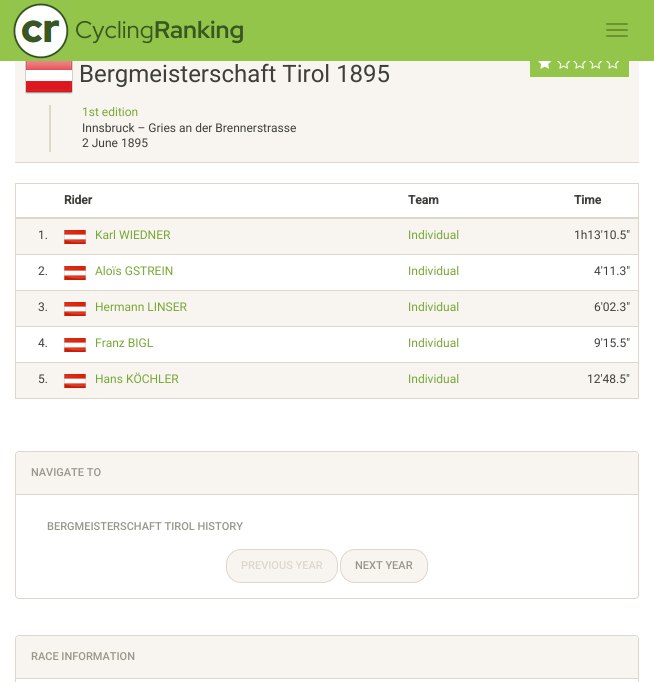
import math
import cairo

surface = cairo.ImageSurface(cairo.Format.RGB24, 654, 682)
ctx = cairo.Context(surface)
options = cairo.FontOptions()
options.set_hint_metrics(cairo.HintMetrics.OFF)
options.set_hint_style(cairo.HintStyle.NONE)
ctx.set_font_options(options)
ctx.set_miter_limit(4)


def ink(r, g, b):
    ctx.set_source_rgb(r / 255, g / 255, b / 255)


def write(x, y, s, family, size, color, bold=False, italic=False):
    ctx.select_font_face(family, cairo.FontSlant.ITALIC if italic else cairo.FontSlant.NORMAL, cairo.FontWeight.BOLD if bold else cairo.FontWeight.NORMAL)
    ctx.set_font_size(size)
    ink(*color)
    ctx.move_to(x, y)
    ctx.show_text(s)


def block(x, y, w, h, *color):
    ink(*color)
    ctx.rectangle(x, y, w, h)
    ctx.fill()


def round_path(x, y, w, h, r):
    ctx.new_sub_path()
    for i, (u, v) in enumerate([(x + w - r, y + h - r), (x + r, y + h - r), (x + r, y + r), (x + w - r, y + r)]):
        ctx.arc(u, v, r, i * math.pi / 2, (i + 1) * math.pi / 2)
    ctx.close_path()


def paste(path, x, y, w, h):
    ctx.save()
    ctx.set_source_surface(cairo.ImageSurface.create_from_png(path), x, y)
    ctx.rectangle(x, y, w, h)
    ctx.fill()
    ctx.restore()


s1 = dict(family="Red Hat Display", size=24, color=(56, 87, 35))
s2 = dict(family="Red Hat Display", size=24, color=(56, 87, 35), bold=True)
s3 = dict(family="Roboto", size=24, color=(62, 63, 58))
s4 = dict(family="Roboto", size=12, color=(121, 167, 54))
s5 = dict(family="Roboto", size=12, color=(62, 63, 58))
s6 = dict(family="Roboto", size=12, color=(62, 63, 58), bold=True)
s7 = dict(family="Roboto Medium", size=11, color=(152, 151, 139))
s8 = dict(family="Roboto Medium", size=11, color=(223, 215, 202))

ink(255, 255, 255)
ctx.paint()
block(0, 0, 654, 61, 147, 197, 75)
paste("pic1.png", 9, 0, 63, 60)
write(75, 38, "Cycling", **s1)
write(154, 38, "Ranking", **s2)
ink(107, 148, 48)
round_path(606, 23, 22, 2, 1)
ctx.fill()
round_path(606, 29, 22, 2, 1)
ctx.fill()
round_path(606, 35, 22, 2, 1)
ctx.fill()
block(15, 61, 624, 101, 248, 245, 240)
block(15, 162, 624, 1, 223, 215, 202)
paste("pic2.png", 25, 61, 48, 33)
write(79, 82, "Bergmeisterschaft Tirol 1895", **s3)
block(530, 61, 99, 16, 147, 197, 75)
paste("pic3.png", 538, 61, 14, 8)
paste("pic4.png", 557, 61, 14, 8)
paste("pic4.png", 573, 61, 14, 8)
paste("pic4.png", 589, 61, 14, 8)
paste("pic4.png", 606, 61, 14, 8)
block(49, 105, 2, 47, 223, 215, 202)
write(82, 116, "1st edition", **s4)
write(82, 132, "Innsbruck – Gries an der Brennerstrasse", **s5)
write(82, 147, "2 June 1895", **s5)
ctx.rectangle(15.5, 183.5, 623, 215)
ink(223, 215, 202)
ctx.set_line_width(1)
ctx.stroke()
write(64, 204, "Rider", **s6)
write(408, 204, "Team", **s6)
block(16, 217, 622, 2, 223, 215, 202)
write(574, 204, "Time", **s6)
block(16, 219, 622, 35, 248, 245, 240)
write(38, 239, "1.", **s5)
paste("pic5.png", 64, 230, 22, 14)
write(95, 239, "Karl WIEDNER", **s4)
write(408, 239, "Individual", **s4)
write(574, 239, "1h13'10.5\"", **s5)
write(38, 275, "2.", **s5)
paste("pic6.png", 64, 266, 22, 14)
write(95, 275, "Aloïs GSTREIN", **s4)
write(408, 275, "Individual", **s4)
block(16, 254, 622, 1, 223, 215, 202)
write(594, 275, "4'11.3\"", **s5)
block(16, 291, 622, 35, 248, 245, 240)
write(38, 311, "3.", **s5)
paste("pic5.png", 64, 302, 22, 14)
write(95, 311, "Hermann LINSER", **s4)
write(408, 311, "Individual", **s4)
block(16, 290, 622, 1, 223, 215, 202)
write(594, 311, "6'02.3\"", **s5)
write(38, 347, "4.", **s5)
paste("pic6.png", 64, 338, 22, 14)
write(95, 347, "Franz BIGL", **s4)
write(408, 347, "Individual", **s4)
block(16, 326, 622, 1, 223, 215, 202)
write(594, 347, "9'15.5\"", **s5)
block(16, 363, 622, 35, 248, 245, 240)
write(38, 383, "5.", **s5)
paste("pic5.png", 64, 374, 22, 14)
write(95, 383, "Hans KÖCHLER", **s4)
write(408, 383, "Individual", **s4)
block(16, 362, 622, 1, 223, 215, 202)
write(587, 383, "12'48.5\"", **s5)
round_path(15.5, 451.5, 623, 147, 3.5)
ink(223, 215, 202)
ctx.stroke()
ink(248, 245, 240)
ctx.new_path()
ctx.move_to(19, 452)
ctx.line_to(635, 452)
ctx.curve_to(636.5, 452, 638, 453.5, 638, 455)
ctx.line_to(638, 495)
ctx.line_to(16, 495)
ctx.line_to(16, 455)
ctx.curve_to(16, 453.5, 17.5, 452, 19, 452)
ctx.close_path()
ctx.fill()
block(16, 494, 622, 1, 223, 215, 202)
write(31, 476, "NAVIGATE TO", **s7)
write(47, 530, "BERGMEISTERSCHAFT TIROL HISTORY", **s7)
ink(248, 245, 240)
round_path(226.5, 549.5, 111, 33, 14.5)
ctx.fill_preserve()
ink(223, 215, 202)
ctx.stroke()
write(241, 569, "PREVIOUS YEAR", **s8)
ink(248, 245, 240)
round_path(340.5, 549.5, 87, 33, 14.5)
ctx.fill_preserve()
ink(223, 215, 202)
ctx.stroke()
write(355, 569, "NEXT YEAR", **s7)
round_path(15.5, 635.5, 623, 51, 3.5)
ink(223, 215, 202)
ctx.stroke()
ink(248, 245, 240)
ctx.new_path()
ctx.move_to(19, 636)
ctx.line_to(635, 636)
ctx.curve_to(636.5, 636, 638, 637.5, 638, 639)
ctx.line_to(638, 679)
ctx.line_to(16, 679)
ctx.line_to(16, 639)
ctx.curve_to(16, 637.5, 17.5, 636, 19, 636)
ctx.close_path()
ctx.fill()
block(16, 678, 622, 1, 223, 215, 202)
write(31, 660, "RACE INFORMATION", **s7)
surface.write_to_png("screenshot.png")
